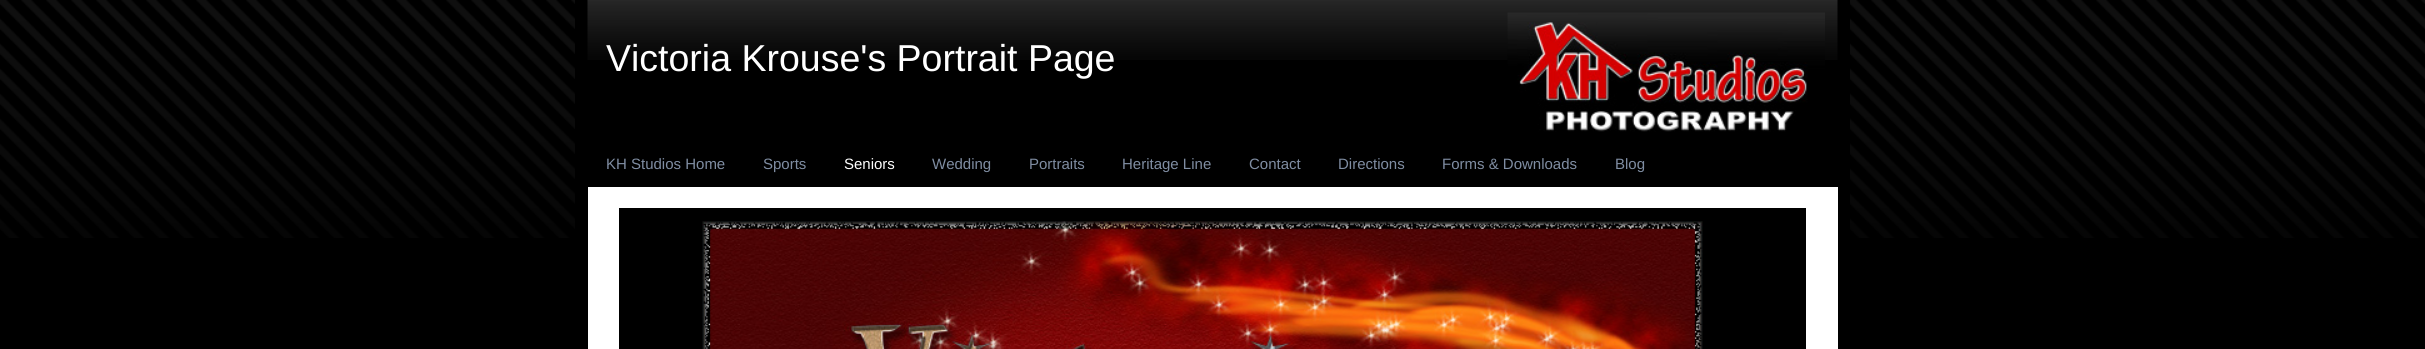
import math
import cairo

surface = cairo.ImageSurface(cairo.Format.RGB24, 2425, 349)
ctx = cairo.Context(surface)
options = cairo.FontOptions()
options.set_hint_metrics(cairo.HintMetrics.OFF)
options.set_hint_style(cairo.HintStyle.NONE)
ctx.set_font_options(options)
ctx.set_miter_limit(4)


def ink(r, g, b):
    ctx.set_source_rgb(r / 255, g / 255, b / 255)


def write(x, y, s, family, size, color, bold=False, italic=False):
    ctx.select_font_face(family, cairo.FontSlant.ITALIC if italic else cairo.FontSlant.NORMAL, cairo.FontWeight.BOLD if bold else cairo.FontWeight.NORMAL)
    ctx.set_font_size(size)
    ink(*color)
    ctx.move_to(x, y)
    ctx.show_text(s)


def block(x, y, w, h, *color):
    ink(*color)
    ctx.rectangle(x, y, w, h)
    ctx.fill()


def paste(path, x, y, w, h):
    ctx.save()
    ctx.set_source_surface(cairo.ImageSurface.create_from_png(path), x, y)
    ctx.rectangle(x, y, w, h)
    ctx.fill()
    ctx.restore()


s1 = dict(family="Liberation Sans", size=37.5, color=(255, 255, 255))
s2 = dict(family="Liberation Sans", size=15, color=(127, 141, 162))
s3 = dict(family="Liberation Sans", size=15, color=(255, 255, 255))

ink(0, 0, 0)
ctx.paint()
paste("pic1.png", 0, 0, 2425, 238)
block(588, 187, 1250, 162, 255, 255, 255)
block(1838, 0, 12, 238, 0, 0, 0)
block(575, 0, 13, 238, 0, 0, 0)
block(588, 0, 1250, 187, 0, 0, 0)
write(606, 71, "Victoria Krouse's Portrait Page", **s1)
paste("pic2.png", 587, 0, 1251, 60)
paste("pic3.png", 1507, 12, 318, 120)
write(606, 169, "KH Studios Home", **s2)
write(763, 169, "Sports", **s2)
write(844, 169, "Seniors", **s3)
write(932, 169, "Wedding", **s2)
write(1029, 169, "Portraits", **s2)
write(1122, 169, "Heritage Line", **s2)
write(1249, 169, "Contact", **s2)
write(1338, 169, "Directions", **s2)
write(1442, 169, "Forms & Downloads", **s2)
write(1615, 169, "Blog", **s2)
block(619, 208, 1187, 141, 0, 0, 0)
paste("pic4.png", 702, 221, 1001, 128)
surface.write_to_png("screenshot.png")
